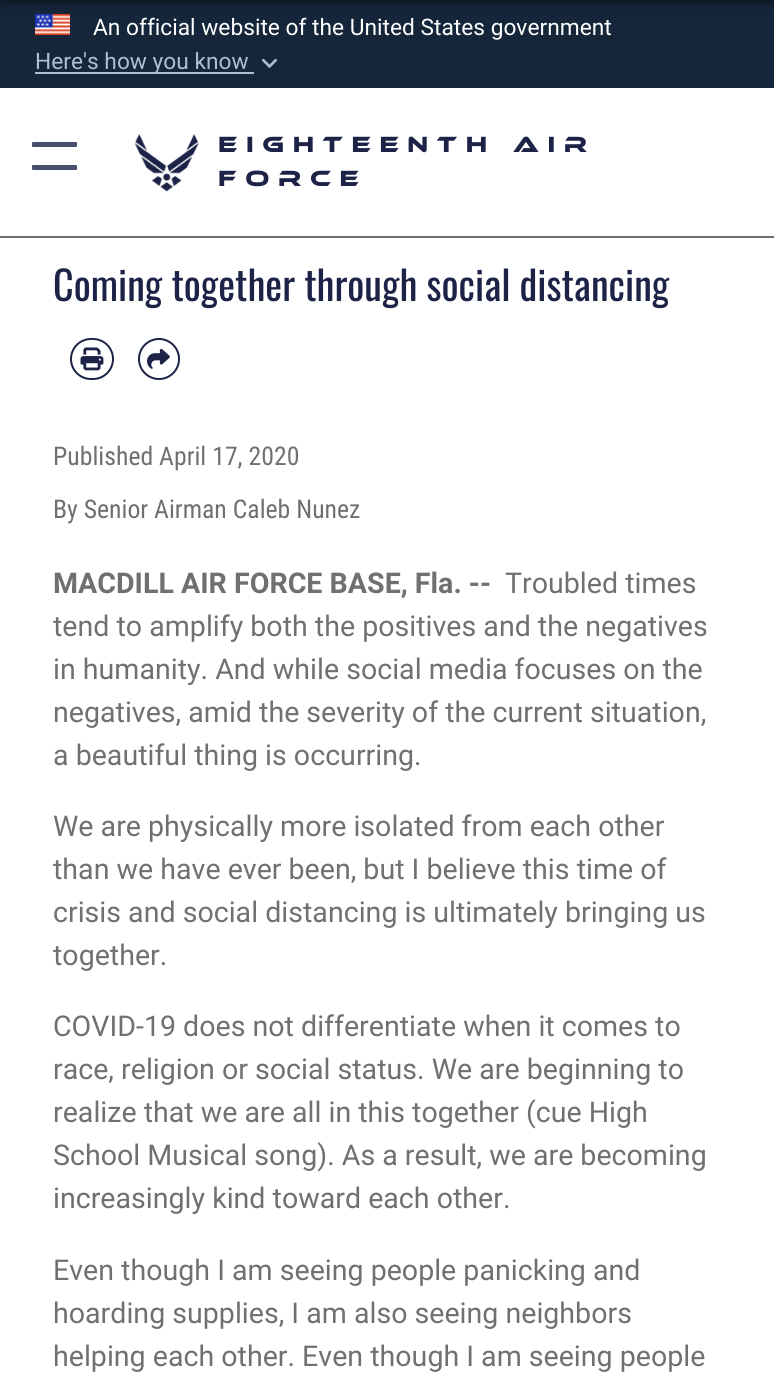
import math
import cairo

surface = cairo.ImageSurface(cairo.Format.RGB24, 774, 1376)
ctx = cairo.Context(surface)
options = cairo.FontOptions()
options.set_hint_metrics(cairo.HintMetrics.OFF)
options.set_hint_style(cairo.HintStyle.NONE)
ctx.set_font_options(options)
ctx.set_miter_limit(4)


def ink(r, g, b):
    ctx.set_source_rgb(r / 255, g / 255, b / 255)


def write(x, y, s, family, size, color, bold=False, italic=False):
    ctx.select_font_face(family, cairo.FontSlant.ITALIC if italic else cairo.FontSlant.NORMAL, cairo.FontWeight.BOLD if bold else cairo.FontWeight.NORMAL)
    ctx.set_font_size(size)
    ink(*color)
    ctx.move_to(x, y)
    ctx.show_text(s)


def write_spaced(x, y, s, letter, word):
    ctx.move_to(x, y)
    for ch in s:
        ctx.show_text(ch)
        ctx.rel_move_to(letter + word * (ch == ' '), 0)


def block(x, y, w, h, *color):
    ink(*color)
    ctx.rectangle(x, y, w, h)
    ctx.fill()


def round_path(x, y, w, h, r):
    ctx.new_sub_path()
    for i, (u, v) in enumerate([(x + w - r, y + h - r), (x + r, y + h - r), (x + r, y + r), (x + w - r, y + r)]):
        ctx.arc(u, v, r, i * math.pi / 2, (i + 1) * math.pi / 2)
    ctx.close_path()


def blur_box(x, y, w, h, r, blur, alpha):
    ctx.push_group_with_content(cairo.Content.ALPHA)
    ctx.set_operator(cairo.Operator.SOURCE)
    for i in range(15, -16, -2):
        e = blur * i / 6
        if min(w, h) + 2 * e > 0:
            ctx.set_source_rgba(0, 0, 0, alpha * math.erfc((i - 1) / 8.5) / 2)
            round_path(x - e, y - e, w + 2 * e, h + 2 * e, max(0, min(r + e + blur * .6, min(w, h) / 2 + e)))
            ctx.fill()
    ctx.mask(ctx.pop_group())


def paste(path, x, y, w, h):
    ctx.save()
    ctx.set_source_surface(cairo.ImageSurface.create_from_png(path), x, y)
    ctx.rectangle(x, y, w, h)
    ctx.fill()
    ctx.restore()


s1 = dict(family="Roboto", size=22.75, color=(255, 255, 255))
s2 = dict(family="Roboto", size=22.75, color=(174, 191, 212))
s3 = dict(family="Oswald", size=40.1, color=(28, 35, 71))
s4 = dict(family="Roboto Condensed", size=25.75, color=(112, 112, 112))
s5 = dict(family="Roboto", size=28.6, color=(112, 112, 112))
s6 = dict(family="Roboto", size=28.6, color=(112, 112, 112), bold=True)

ink(255, 255, 255)
ctx.paint()
block(0, 0, 774, 88, 21, 38, 59)
paste("pic1.png", 35, 14, 35, 21)
write(93, 35, "An official website of the United States government", **s1)
block(35, 72, 219, 2, 174, 191, 212)
write(35, 69, "Here's how you know", **s2)
paste("pic2.png", 261, 58, 17, 11)
ink(2, 4, 6)
blur_box(0, -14, 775, 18, 0, 4.5, 0.5)
block(0, 236, 774, 2, 112, 112, 112)
ink(73, 80, 109)
round_path(32, 142, 45, 5, 1)
ctx.fill()
round_path(32, 165, 45, 5, 1)
ctx.fill()
paste("pic3.png", 134, 134, 65, 58)
ctx.select_font_face("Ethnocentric")
ink(28, 35, 71)
write_spaced(218, 152, "Eighteenth Air", 8.6, 0)
write_spaced(218, 186, "Force", 8.6, 0)
write(53, 301, "Coming together through social distancing", **s3)
round_path(71, 339, 42, 40, 20)
ctx.stroke()
paste("pic4.png", 80, 347, 24, 24)
ctx.arc(159, 359, 20, 0, 2 * math.pi)
ctx.stroke()
paste("pic5.png", 147, 348, 23, 21)
write(53, 465, "Published April 17, 2020", **s4)
write(53, 518, "By Senior Airman Caleb Nunez", **s4)
write(505, 593, "Troubled times", **s5)
write(53, 636, "tend to amplify both the positives and the negatives", **s5)
write(53, 679, "in humanity. And while social media focuses on the", **s5)
write(53, 722, "negatives, amid the severity of the current situation,", **s5)
write(53, 765, "a beautiful thing is occurring.", **s5)
write(53, 593, "MACDILL AIR FORCE BASE, Fla. --", **s6)
write(53, 836, "We are physically more isolated from each other", **s5)
write(53, 879, "than we have ever been, but I believe this time of", **s5)
write(53, 922, "crisis and social distancing is ultimately bringing us", **s5)
write(53, 965, "together.", **s5)
write(53, 1036, "COVID-19 does not differentiate when it comes to", **s5)
write(53, 1079, "race, religion or social status. We are beginning to", **s5)
write(53, 1122, "realize that we are all in this together (cue High", **s5)
write(53, 1165, "School Musical song). As a result, we are becoming", **s5)
write(53, 1208, "increasingly kind toward each other.", **s5)
write(53, 1280, "Even though I am seeing people panicking and", **s5)
write(53, 1323, "hoarding supplies, I am also seeing neighbors", **s5)
write(53, 1366, "helping each other. Even though I am seeing people", **s5)
surface.write_to_png("screenshot.png")
